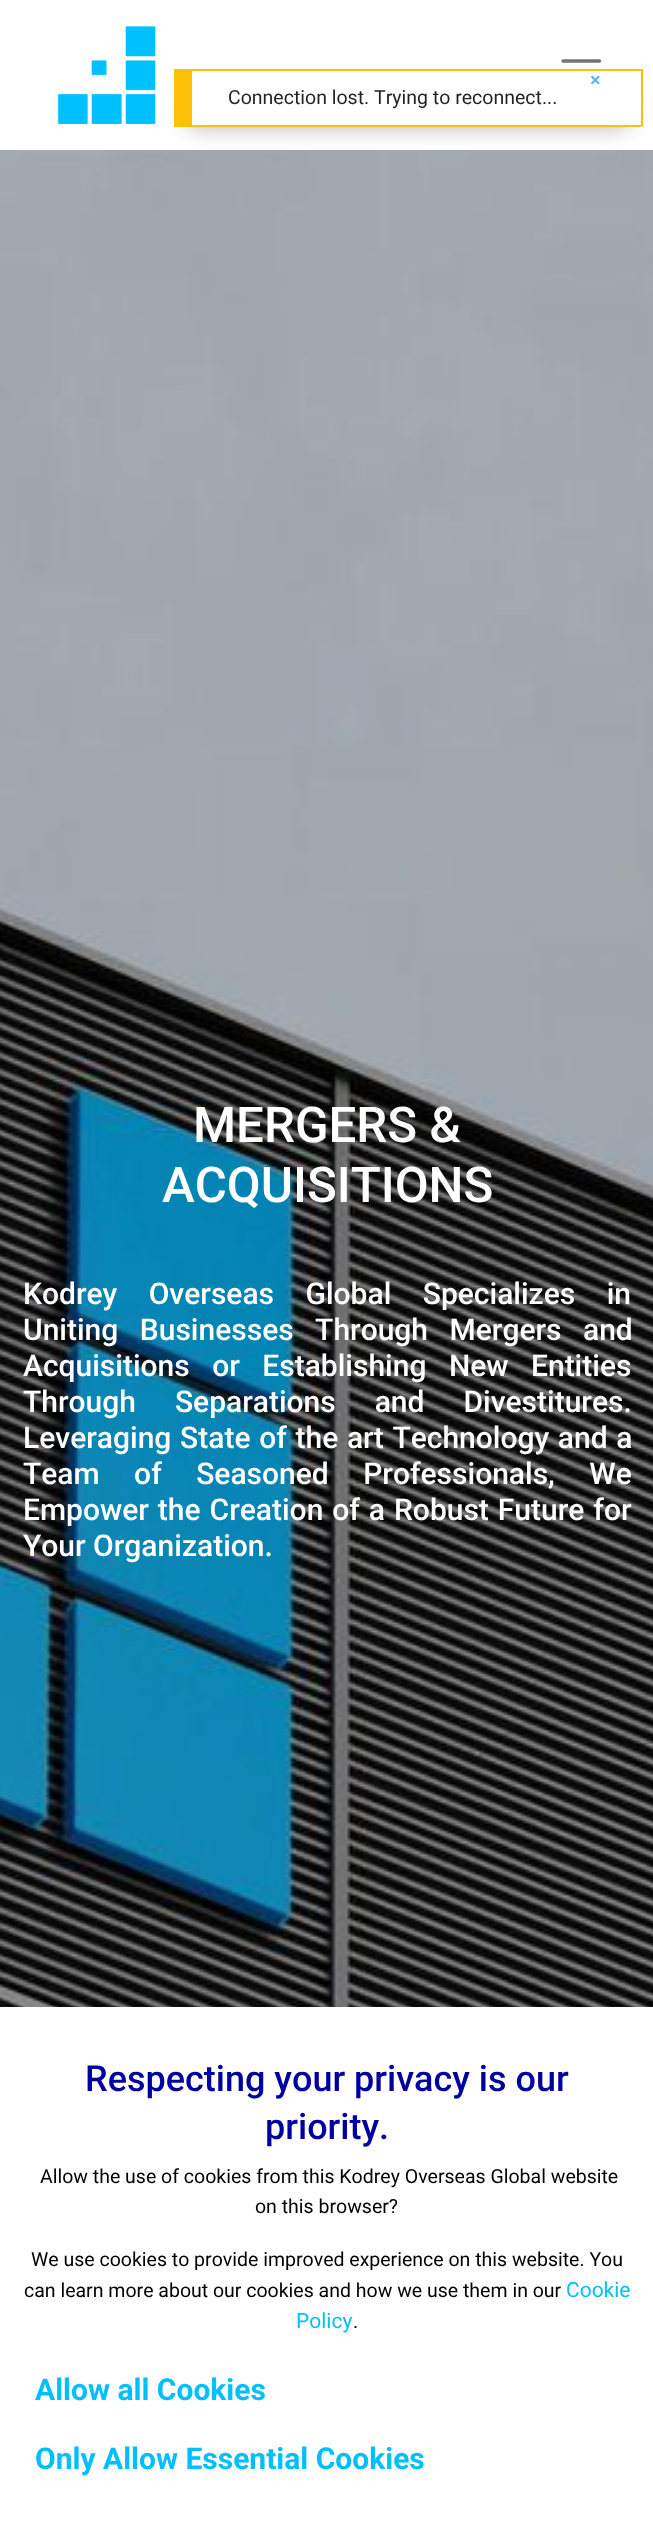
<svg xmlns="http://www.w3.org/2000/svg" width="653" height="2523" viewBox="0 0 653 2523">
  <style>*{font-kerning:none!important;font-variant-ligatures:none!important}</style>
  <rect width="100%" height="100%" fill="rgb(255,255,255)"/>
  <path d="M563 61H599.5M563 74.5H599.5M563 87.5H599.5" fill="none" stroke="rgb(115,115,115)" stroke-width="3.3" stroke-linecap="round"/>
  <image x="0" y="150" width="653" height="1857" href="pic2.png"/>
  <rect x="189" y="102" width="438" height="27" fill="rgba(0,0,0,0.25)" filter="blur(10.5px)"/>
  <rect x="192" y="72" width="449" height="53" fill="rgb(255,255,255)"/>
  <rect x="192" y="69" width="450" height="2" fill="rgb(255,193,7)"/>
  <rect x="641" y="69" width="2" height="57" fill="rgb(255,193,7)"/>
  <rect x="174" y="125" width="468" height="2" fill="rgb(255,193,7)"/>
  <rect x="174" y="69" width="18" height="56" fill="rgb(255,193,7)"/>
  <text x="590" y="86" font-family="Liberation Sans" font-size="18" font-weight="bold" fill="rgb(77,183,254)">×</text>
  <text x="228" y="104" font-family="Roboto" font-size="19.5" fill="rgb(33,37,41)">Connection lost. Trying to reconnect...</text>
  <image x="57" y="26" width="99" height="99" href="pic1.png"/>
  <g font-family="Roboto" font-size="49.25" font-weight="500" fill="rgb(255,255,255)">
    <text x="193" y="1142">MERGERS &amp;</text>
    <text x="162" y="1202">ACQUISITIONS</text>
  </g>
  <g font-family="Roboto" font-size="30" font-weight="500" fill="rgb(255,255,255)">
    <text>
      <tspan x="23" y="1304" word-spacing="24">Kodrey Overseas Global Specializes in</tspan>
      <tspan x="23" y="1340" word-spacing="14">Uniting Businesses Through Mergers and</tspan>
      <tspan x="23" y="1376" word-spacing="15">Acquisitions or Establishing New Entities</tspan>
      <tspan x="23" y="1412" word-spacing="31.5">Through Separations and Divestitures.</tspan>
      <tspan x="23" y="1448" word-spacing="1.25">Leveraging State of the art Technology and a</tspan>
      <tspan x="23" y="1484" word-spacing="27">Team of Seasoned Professionals, We</tspan>
      <tspan x="23" y="1520" word-spacing="1.5">Empower the Creation of a Robust Future for</tspan>
      <tspan x="23" y="1556">Your Organization.</tspan>
    </text>
  </g>
  <g font-family="Roboto" font-size="36" font-weight="500" fill="rgb(0,0,160)">
    <text x="85" y="2091">Respecting your privacy is our</text>
    <text x="265" y="2139">priority.</text>
  </g>
  <g font-family="Roboto" font-size="19.5" fill="rgb(0,0,0)">
    <text x="40" y="2183">Allow the use of cookies from this Kodrey Overseas Global website</text>
    <text x="255" y="2213">on this browser?</text>
    <text x="31" y="2266">We use cookies to provide improved experience on this website. You</text>
    <text x="24" y="2297">can learn more about our cookies and how we use them in our </text>
  </g>
  <g font-family="Roboto" font-size="21" fill="rgb(0,191,255)">
    <text x="566" y="2297">Cookie</text>
    <text x="296" y="2328">Policy</text>
  </g>
  <text x="353" y="2328" font-family="Roboto" font-size="19.5" fill="rgb(0,0,0)">.</text>
  <g font-family="Roboto" font-size="30" font-weight="bold" fill="rgb(0,191,255)">
    <text x="35" y="2400">Allow all Cookies</text>
    <text x="35" y="2469">Only Allow Essential Cookies</text>
  </g>
</svg>
